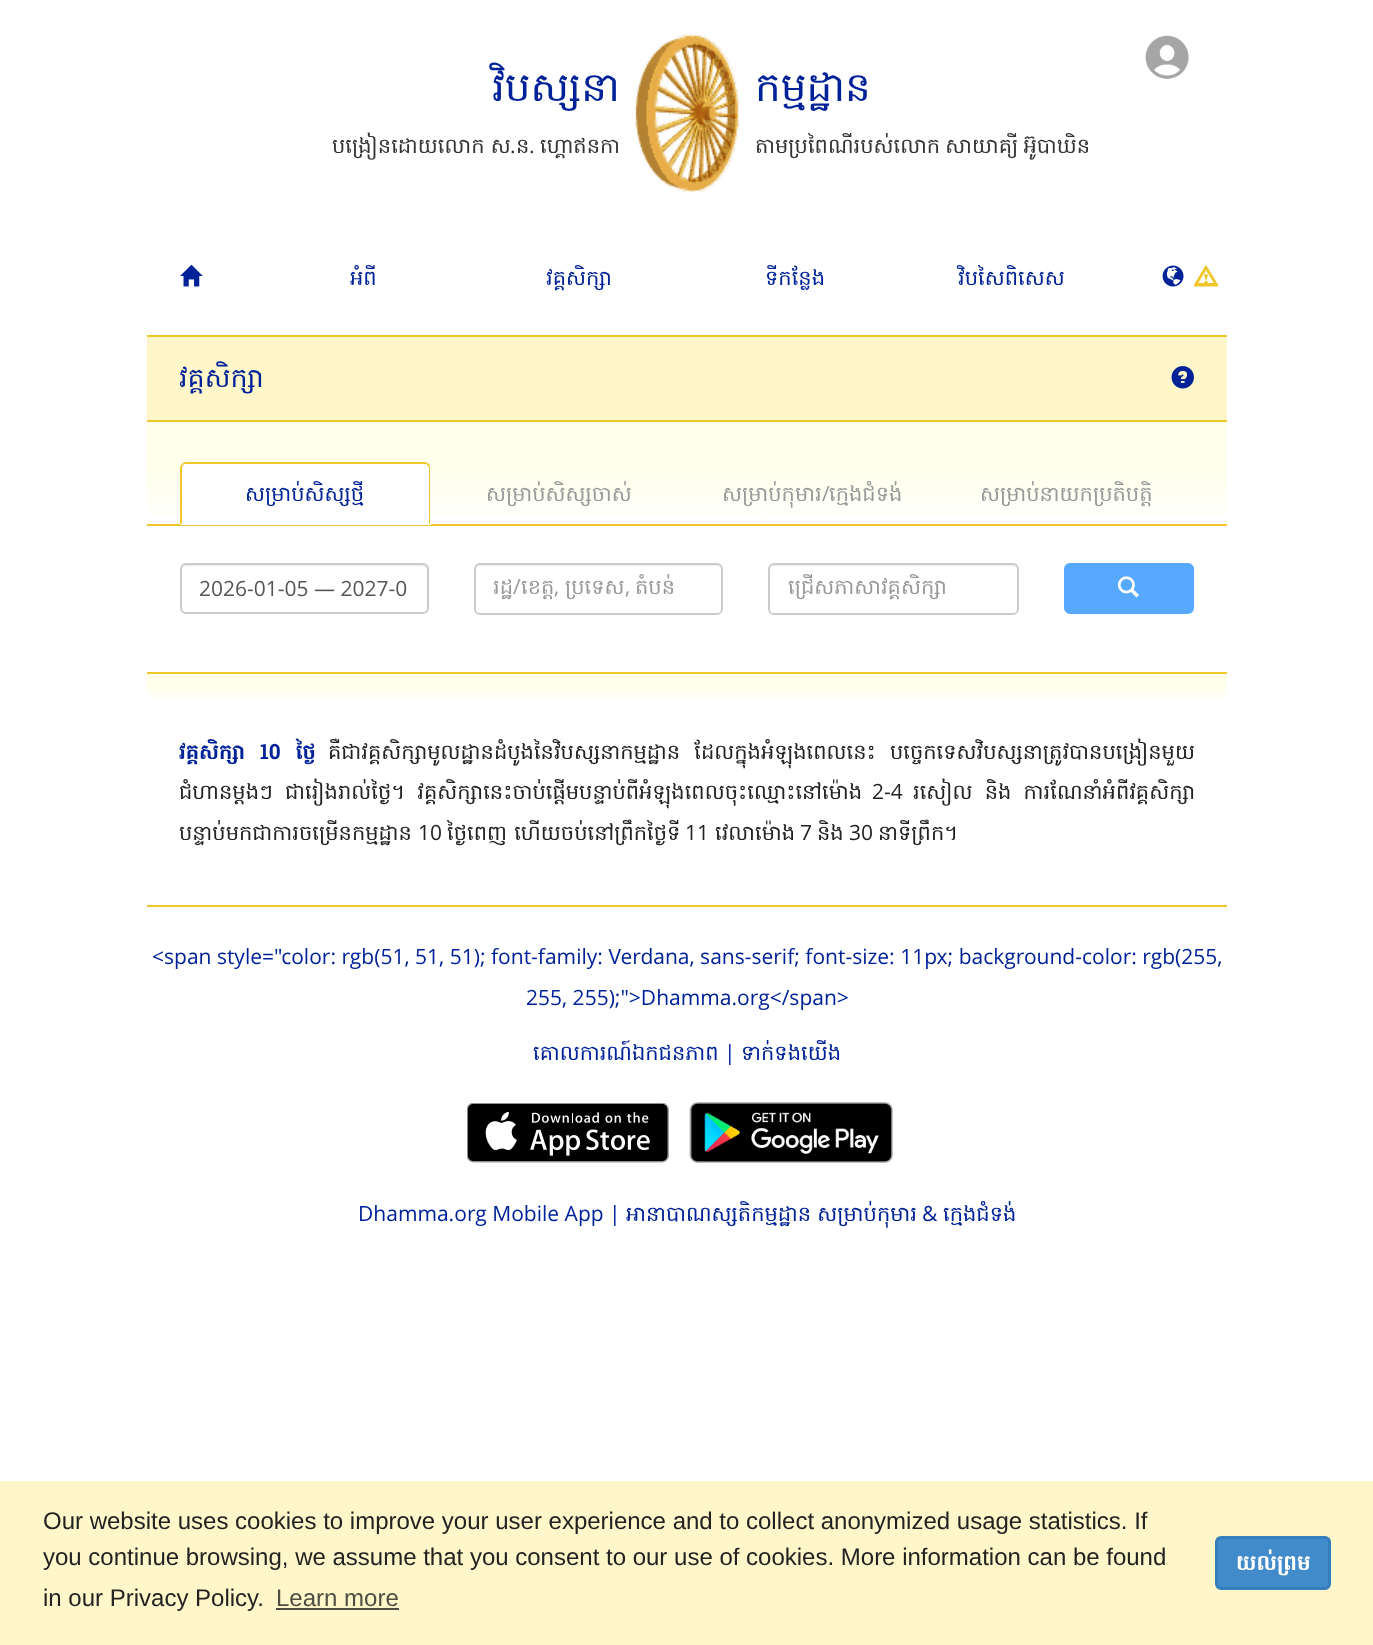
<svg xmlns="http://www.w3.org/2000/svg" width="1373" height="1645" viewBox="0 0 1373 1645">
  <defs>
    <linearGradient id="g1" gradientUnits="userSpaceOnUse" x1="687" y1="421" x2="687" y2="524"><stop offset="0.46" stop-color="rgb(255,255,234)"/><stop offset="1" stop-color="rgb(255,255,255)"/></linearGradient>
    <clipPath id="clip1"><rect x="494" y="572" width="210" height="33"/></clipPath>
    <clipPath id="clip2"><rect x="788" y="572" width="210" height="33"/></clipPath>
    <linearGradient id="g2" gradientUnits="userSpaceOnUse" x1="687" y1="673" x2="687" y2="701"><stop offset="0.46" stop-color="rgb(255,255,234)"/><stop offset="1" stop-color="rgb(255,255,255)"/></linearGradient>
  </defs>
  <rect width="100%" height="100%" fill="rgb(255,255,255)"/>
  <image x="1145" y="35" width="44" height="44" href="pic1.png"/>
  <text x="492" y="101" font-family="Hanuman" font-size="40.5" fill="rgb(0,34,153)">វិបស្សនា</text>
  <text x="332" y="153" word-spacing="-1" font-family="Hanuman" font-size="21" fill="rgb(51,51,51)">បង្រៀនដោយលោក ស</text>
  <text x="510" y="153" font-family="Open Sans" font-size="21" fill="rgb(51,51,51)">.</text>
  <text x="516" y="153" font-family="Hanuman" font-size="21" fill="rgb(51,51,51)">ន</text>
  <text x="529" y="153" font-family="Open Sans" font-size="21" fill="rgb(51,51,51)">.</text>
  <text x="540" y="153" font-family="Hanuman" font-size="21" fill="rgb(51,51,51)">ហ្គោឥនកា</text>
  <image x="634" y="34" width="106" height="158" href="pic2.png"/>
  <text x="755" y="101" font-family="Hanuman" font-size="40.5" fill="rgb(0,34,153)">កម្មដ្ឋាន</text>
  <text x="755" y="153" word-spacing="-2" font-family="Hanuman" font-size="21" fill="rgb(51,51,51)">តាមប្រពៃណីរបស់លោក សាយាគ្យី អ៊ូបាឃិន</text>
  <image x="180" y="264" width="23" height="23" href="pic3.png"/>
  <g font-family="Hanuman" font-size="21" fill="rgb(0,34,153)">
    <text x="350" y="285">អំពី</text>
    <text x="546" y="285">វគ្គសិក្សា</text>
    <text x="765" y="285">ទីកន្លែង</text>
    <text x="958" y="285">វិបសៃពិសេស</text>
  </g>
  <image x="1162" y="265" width="22" height="22" href="pic4.png"/>
  <image x="1193" y="265" width="26" height="22" href="pic5.png"/>
  <rect x="147" y="337" width="1080" height="83" fill="rgb(255,247,201)"/>
  <rect x="147" y="335" width="1080" height="2" fill="rgb(239,199,42)"/>
  <rect x="147" y="420" width="1080" height="2" fill="rgb(239,199,42)"/>
  <text x="179" y="387" font-family="Hanuman" font-size="27" fill="rgb(0,34,153)">វគ្គសិក្សា</text>
  <image x="1171" y="366" width="23" height="23" href="pic6.png"/>
  <rect x="147" y="422" width="1080" height="95" fill="url(#g1)"/>
  <rect x="147" y="524" width="1080" height="2" fill="rgb(239,199,42)"/>
  <path d="M186 462H425C428.5 462 431 464.5 431 468V525H180V468C180 464.5 182.5 462 186 462Z" fill="rgb(255,255,255)"/>
  <path d="M186 462C184 462 183 463 182 464L183 465C184 464 185 464 186 464H424C425 464 427 464 427 465L429 464C428 463 426 462 424 462Z" fill="rgb(239,199,42)"/>
  <path d="M429 464C430 465 430 467 430 468V524H429V467L427 465Z" fill="rgb(239,199,42)"/>
  <path d="M180 525L182 523V468L183 465L182 464C181 465 180 466 180 468Z" fill="rgb(239,199,42)"/>
  <text x="245" y="501" font-family="Hanuman" font-size="21" fill="rgb(0,34,153)">សម្រាប់សិស្សថ្មី</text>
  <g font-family="Hanuman" font-size="21" fill="rgb(153,153,153)">
    <text x="486" y="501">សម្រាប់សិស្សចាស់</text>
    <text x="722" y="501">សម្រាប់កុមារ</text>
  </g>
  <text x="822" y="501" font-family="Open Sans" font-size="21" fill="rgb(153,153,153)">/</text>
  <g font-family="Hanuman" font-size="21" fill="rgb(153,153,153)">
    <text x="829" y="501">ក្មេងជំទង់</text>
    <text x="980" y="501">សម្រាប់នាយកប្រតិបត្តិ</text>
  </g>
  <path d="M186 566H423C425 566 428 568 428 570V569C428 566 426 564 423 564H187C184 564 182 566 182 569V570C182 568 184 566 186 566Z" fill="rgb(236,236,236)"/>
  <rect x="181" y="564" width="247" height="49" rx="5" fill="none" stroke="rgb(204,204,204)" stroke-width="2"/>
  <text x="199" y="596" font-family="Open Sans" font-size="21" fill="rgb(85,85,85)">2026-01-05 — 2027-0</text>
  <path d="M480 566H717C719 566 722 568 722 570V569C722 566 720 564 717 564H481C478 564 476 566 476 569V570C476 568 478 566 480 566Z" fill="rgb(236,236,236)"/>
  <rect x="475" y="564" width="247" height="50" rx="5" fill="none" stroke="rgb(204,204,204)" stroke-width="2"/>
  <g clip-path="url(#clip1)">
    <text x="493" y="594" font-family="Hanuman" font-size="21" fill="rgb(153,153,153)">រដ្ឋ</text>
  </g>
  <text x="513" y="594" font-family="Open Sans" font-size="21" fill="rgb(153,153,153)">/</text>
  <text x="521" y="594" font-family="Hanuman" font-size="21" fill="rgb(153,153,153)">ខេត្ត</text>
  <text x="554" y="594" font-family="Open Sans" font-size="21" fill="rgb(153,153,153)">,</text>
  <text x="565" y="594" font-family="Hanuman" font-size="21" fill="rgb(153,153,153)">ប្រទេស</text>
  <text x="625" y="594" font-family="Open Sans" font-size="21" fill="rgb(153,153,153)">,</text>
  <text x="635" y="594" font-family="Hanuman" font-size="21" fill="rgb(153,153,153)">តំបន់</text>
  <path d="M774 566H1012C1015 566 1017 568 1017 570V569C1017 566 1015 564 1012 564H775C772 564 770 566 770 569V570C770 568 772 566 774 566Z" fill="rgb(236,236,236)"/>
  <rect x="769" y="564" width="249" height="50" rx="5" fill="none" stroke="rgb(204,204,204)" stroke-width="2"/>
  <g clip-path="url(#clip2)">
    <text x="788" y="594" font-family="Hanuman" font-size="21" fill="rgb(153,153,153)">ជ្រើសភាសាវគ្គសិក្សា</text>
  </g>
  <rect x="1065" y="564" width="128" height="49" rx="5" fill="rgb(87,168,255)" stroke="rgb(87,168,255)" stroke-width="2"/>
  <image x="1117" y="576" width="22" height="22" href="pic7.png"/>
  <rect x="147" y="674" width="1080" height="25" fill="url(#g2)"/>
  <rect x="147" y="672" width="1080" height="2" fill="rgb(239,199,42)"/>
  <text x="179" y="759" word-spacing="8" font-family="Hanuman" font-size="21" font-weight="bold" fill="rgb(0,34,153)">វគ្គសិក្សា 10 ថ្ងៃ</text>
  <g font-family="Hanuman" font-size="21" fill="rgb(34,34,34)">
    <text x="328" y="759" word-spacing="7">គឺជាវគ្គសិក្សាមូលដ្ឋានដំបូងនៃវិបស្សនាកម្មដ្ឋាន ដែលក្នុងអំឡុងពេលនេះ បច្ចេកទេសវិបស្សនាត្រូវបានបង្រៀនមួយ</text>
    <text x="179" y="799" word-spacing="5">ជំហានម្តងៗ ជារៀងរាល់ថ្ងៃ។ វគ្គសិក្សានេះចាប់ផ្តើមបន្ទាប់ពីអំឡុងពេលចុះឈ្មោះនៅម៉ោង</text>
  </g>
  <text x="872" y="799" font-family="Open Sans" font-size="21" fill="rgb(34,34,34)">2-4</text>
  <g font-family="Hanuman" font-size="21" fill="rgb(34,34,34)">
    <text x="913" y="799" word-spacing="5">រសៀល និង ការណែនាំអំពីវគ្គសិក្សា</text>
    <text x="179" y="840">បន្ទាប់មកជាការចម្រើនកម្មដ្ឋាន</text>
  </g>
  <text x="418" y="840" font-family="Open Sans" font-size="21" fill="rgb(34,34,34)">10</text>
  <text x="447" y="840" font-family="Hanuman" font-size="21" fill="rgb(34,34,34)">ថ្ងៃពេញ ហើយចប់នៅព្រឹកថ្ងៃទី</text>
  <text x="685" y="840" font-family="Open Sans" font-size="21" fill="rgb(34,34,34)">11</text>
  <text x="715" y="840" font-family="Hanuman" font-size="21" fill="rgb(34,34,34)">វេលាម៉ោង</text>
  <text x="800" y="840" font-family="Open Sans" font-size="21" fill="rgb(34,34,34)">7</text>
  <text x="817" y="840" font-family="Hanuman" font-size="21" fill="rgb(34,34,34)">និង</text>
  <text x="849" y="840" font-family="Open Sans" font-size="21" fill="rgb(34,34,34)">30</text>
  <text x="878" y="840" font-family="Hanuman" font-size="21" fill="rgb(34,34,34)">នាទីព្រឹក។</text>
  <rect x="147" y="905" width="1080" height="2" fill="rgb(239,199,42)"/>
  <g font-family="Open Sans" font-size="21" fill="rgb(0,34,153)">
    <text x="152" y="964">&lt;span style="color: rgb(51, 51, 51); font-family: Verdana, sans-serif; font-size: 11px; background-color: rgb(255,</text>
    <text x="526" y="1005">255, 255);"&gt;Dhamma.org&lt;/span&gt;</text>
  </g>
  <text x="533" y="1060" font-family="Hanuman" font-size="21" fill="rgb(0,34,153)">គោលការណ៍ឯកជនភាព</text>
  <text x="724" y="1060" font-family="Open Sans" font-size="21" fill="rgb(0,34,153)">|</text>
  <text x="741" y="1060" font-family="Hanuman" font-size="21" fill="rgb(0,34,153)">ទាក់ទងយើង</text>
  <image x="467" y="1103" width="202" height="60" href="pic8.png"/>
  <image x="689" y="1102" width="204" height="61" href="pic9.png"/>
  <text x="358" y="1221" font-family="Open Sans" font-size="21" fill="rgb(0,34,153)">Dhamma.org Mobile App |</text>
  <text x="626" y="1221" word-spacing="-1" font-family="Hanuman" font-size="21" fill="rgb(0,34,153)">អានាបាណស្សតិកម្មដ្ឋាន សម្រាប់កុមារ</text>
  <text x="922" y="1221" font-family="Open Sans" font-size="21" fill="rgb(0,34,153)">&amp;</text>
  <text x="943" y="1221" font-family="Hanuman" font-size="21" fill="rgb(0,34,153)">ក្មេងជំទង់</text>
  <rect x="0" y="1481" width="1373" height="164" fill="rgb(255,247,201)"/>
  <g font-family="Liberation Sans" font-size="24" fill="rgb(34,34,34)">
    <text>
      <tspan x="43" y="1529">Our website uses cookies to improve your user experience and to collect anonymized usage statistics. If</tspan>
      <tspan x="43" y="1565">you continue browsing, we assume that you consent to our use of cookies. More information can be found</tspan>
      <tspan x="43" y="1606">in our Privacy Policy.</tspan>
    </text>
  </g>
  <text x="276" y="1606" font-family="Liberation Sans" font-size="24" fill="rgb(78,77,67)">Learn more</text>
  <rect x="276" y="1608" width="123" height="2" fill="rgb(78,77,67)"/>
  <rect x="1216.5" y="1537.5" width="113" height="51" rx="4.5" fill="rgb(66,139,202)" stroke="rgb(53,126,189)" stroke-width="3"/>
  <text x="1236" y="1570" font-family="Hanuman" font-size="21.5" font-weight="bold" fill="rgb(255,255,255)">យល់ព្រម</text>
</svg>
